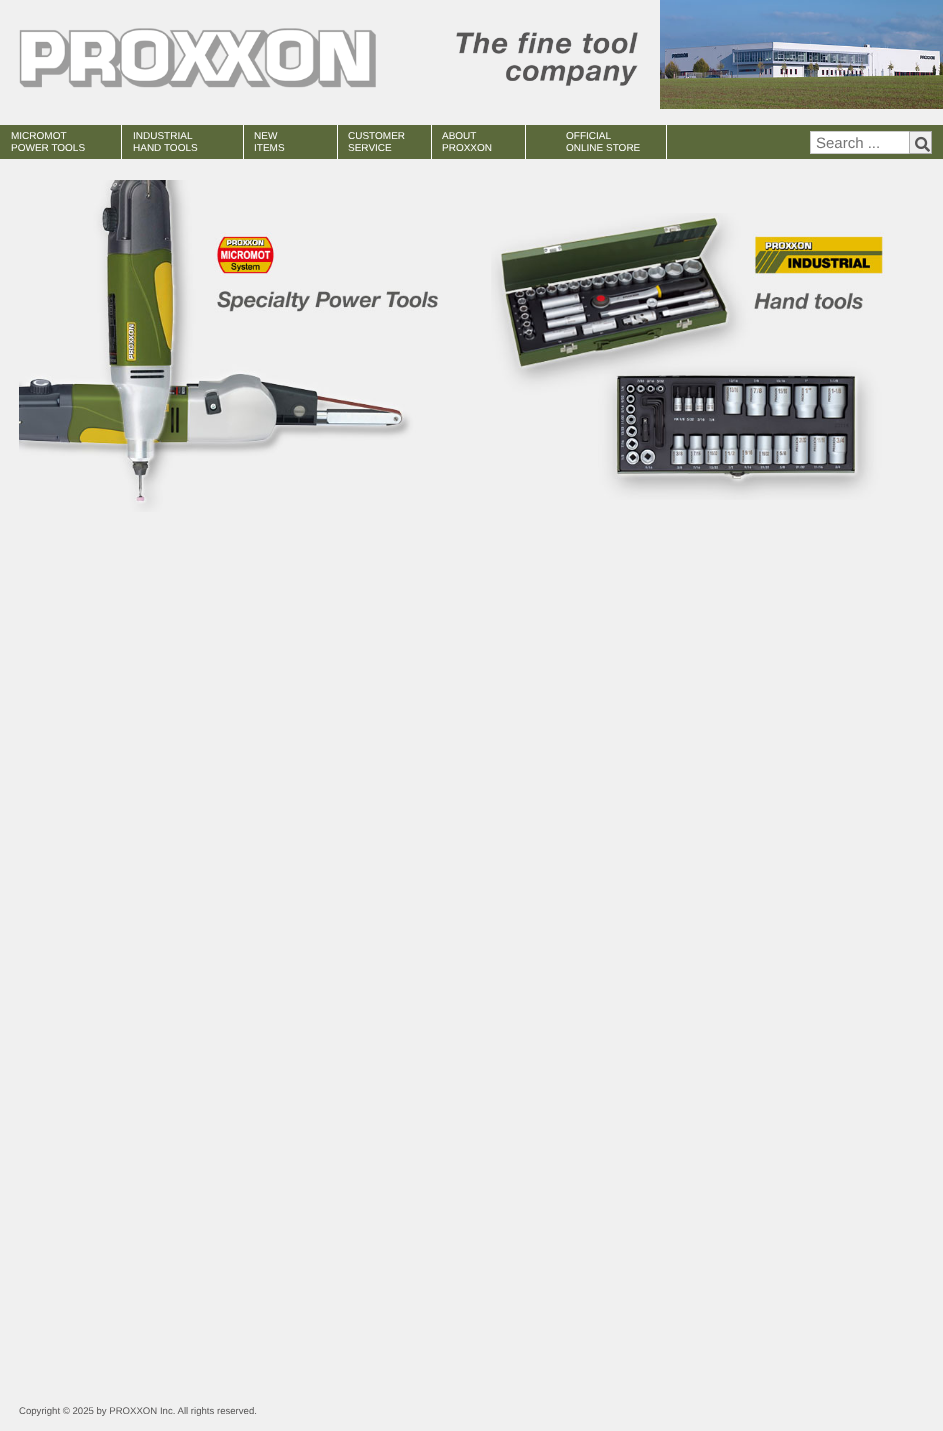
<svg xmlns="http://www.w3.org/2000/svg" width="943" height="1431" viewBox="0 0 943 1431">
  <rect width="100%" height="100%" fill="rgb(240,240,240)"/>
  <image x="19" y="28" width="357" height="60" href="pic1.png"/>
  <image x="456" y="32" width="182" height="54" href="pic2.png"/>
  <image x="660" y="0" width="283" height="109" href="pic3.png"/>
  <rect x="0" y="125" width="943" height="34" fill="rgb(91,105,59)"/>
  <rect x="121" y="125" width="1" height="34" fill="rgb(255,255,255)"/>
  <g font-family="Liberation Sans" font-size="10" fill="rgb(255,255,255)">
    <text>
      <tspan x="11" y="139">MICROMOT</tspan>
      <tspan x="11" y="151">POWER TOOLS</tspan>
    </text>
  </g>
  <rect x="243" y="125" width="1" height="34" fill="rgb(255,255,255)"/>
  <g font-family="Liberation Sans" font-size="10" fill="rgb(255,255,255)">
    <text>
      <tspan x="133" y="139">INDUSTRIAL</tspan>
      <tspan x="133" y="151">HAND TOOLS</tspan>
    </text>
  </g>
  <rect x="337" y="125" width="1" height="34" fill="rgb(255,255,255)"/>
  <g font-family="Liberation Sans" font-size="10" fill="rgb(255,255,255)">
    <text>
      <tspan x="254" y="139">NEW</tspan>
      <tspan x="254" y="151">ITEMS</tspan>
    </text>
  </g>
  <rect x="431" y="125" width="1" height="34" fill="rgb(255,255,255)"/>
  <g font-family="Liberation Sans" font-size="10" fill="rgb(255,255,255)">
    <text>
      <tspan x="348" y="139">CUSTOMER</tspan>
      <tspan x="348" y="151">SERVICE</tspan>
    </text>
  </g>
  <rect x="525" y="125" width="1" height="34" fill="rgb(255,255,255)"/>
  <g font-family="Liberation Sans" font-size="10" fill="rgb(255,255,255)">
    <text>
      <tspan x="442" y="139">ABOUT</tspan>
      <tspan x="442" y="151">PROXXON</tspan>
    </text>
  </g>
  <rect x="666" y="125" width="1" height="34" fill="rgb(255,255,255)"/>
  <g font-family="Liberation Sans" font-size="10" fill="rgb(255,255,255)">
    <text>
      <tspan x="566" y="139">OFFICIAL</tspan>
      <tspan x="566" y="151">ONLINE STORE</tspan>
    </text>
  </g>
  <rect x="811" y="132" width="98" height="21" fill="rgb(255,255,255)"/>
  <rect x="810.5" y="131.5" width="121" height="22" fill="none" stroke="rgb(204,204,204)"/>
  <text x="816" y="148" font-family="Liberation Sans" font-size="15" fill="rgb(117,117,117)">Search ...</text>
  <rect x="909.5" y="131.5" width="22" height="22" fill="rgb(239,239,239)" stroke="rgb(173,173,173)"/>
  <image x="915" y="136" width="15" height="16" href="pic4.png"/>
  <image x="19" y="180" width="420" height="332" href="pic5.png"/>
  <image x="491" y="213" width="394" height="287" href="pic6.png"/>
  <text x="19" y="1414" font-family="Liberation Sans" font-size="9.6" fill="rgb(87,86,86)">Copyright © 2025 by PROXXON Inc. All rights reserved.</text>
</svg>
